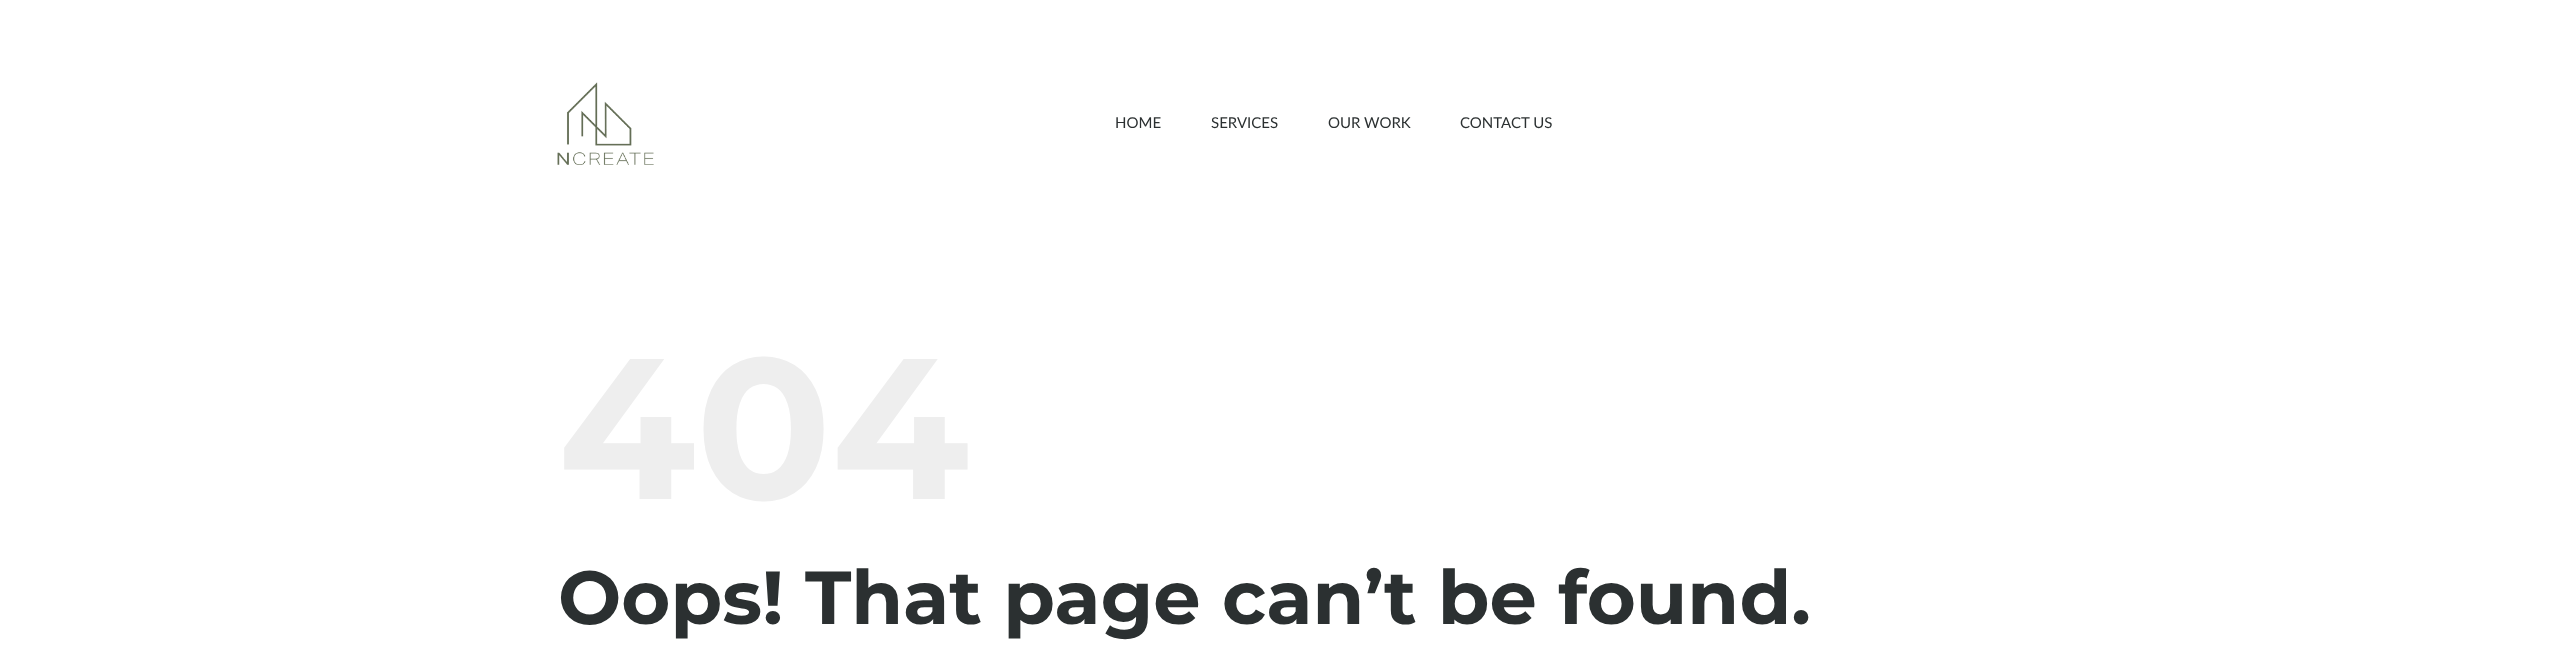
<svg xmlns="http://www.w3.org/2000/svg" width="2552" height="653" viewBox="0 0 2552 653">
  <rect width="100%" height="100%" fill="rgb(255,255,255)"/>
  <image x="557" y="82" width="97" height="83" href="pic1.png"/>
  <g font-family="Lato" font-size="15" fill="rgb(43,48,49)">
    <text x="1115" y="128">HOME</text>
    <text x="1211" y="128">SERVICES</text>
    <text x="1328" y="128">OUR WORK</text>
    <text x="1460" y="128">CONTACT US</text>
  </g>
  <text x="558" y="499" font-family="Montserrat" font-size="200" font-weight="bold" fill="rgb(238,238,238)">404</text>
  <text x="558" y="624" font-family="Montserrat" font-size="75" font-weight="bold" fill="rgb(43,48,49)">Oops! That page can’t be found.</text>
</svg>
